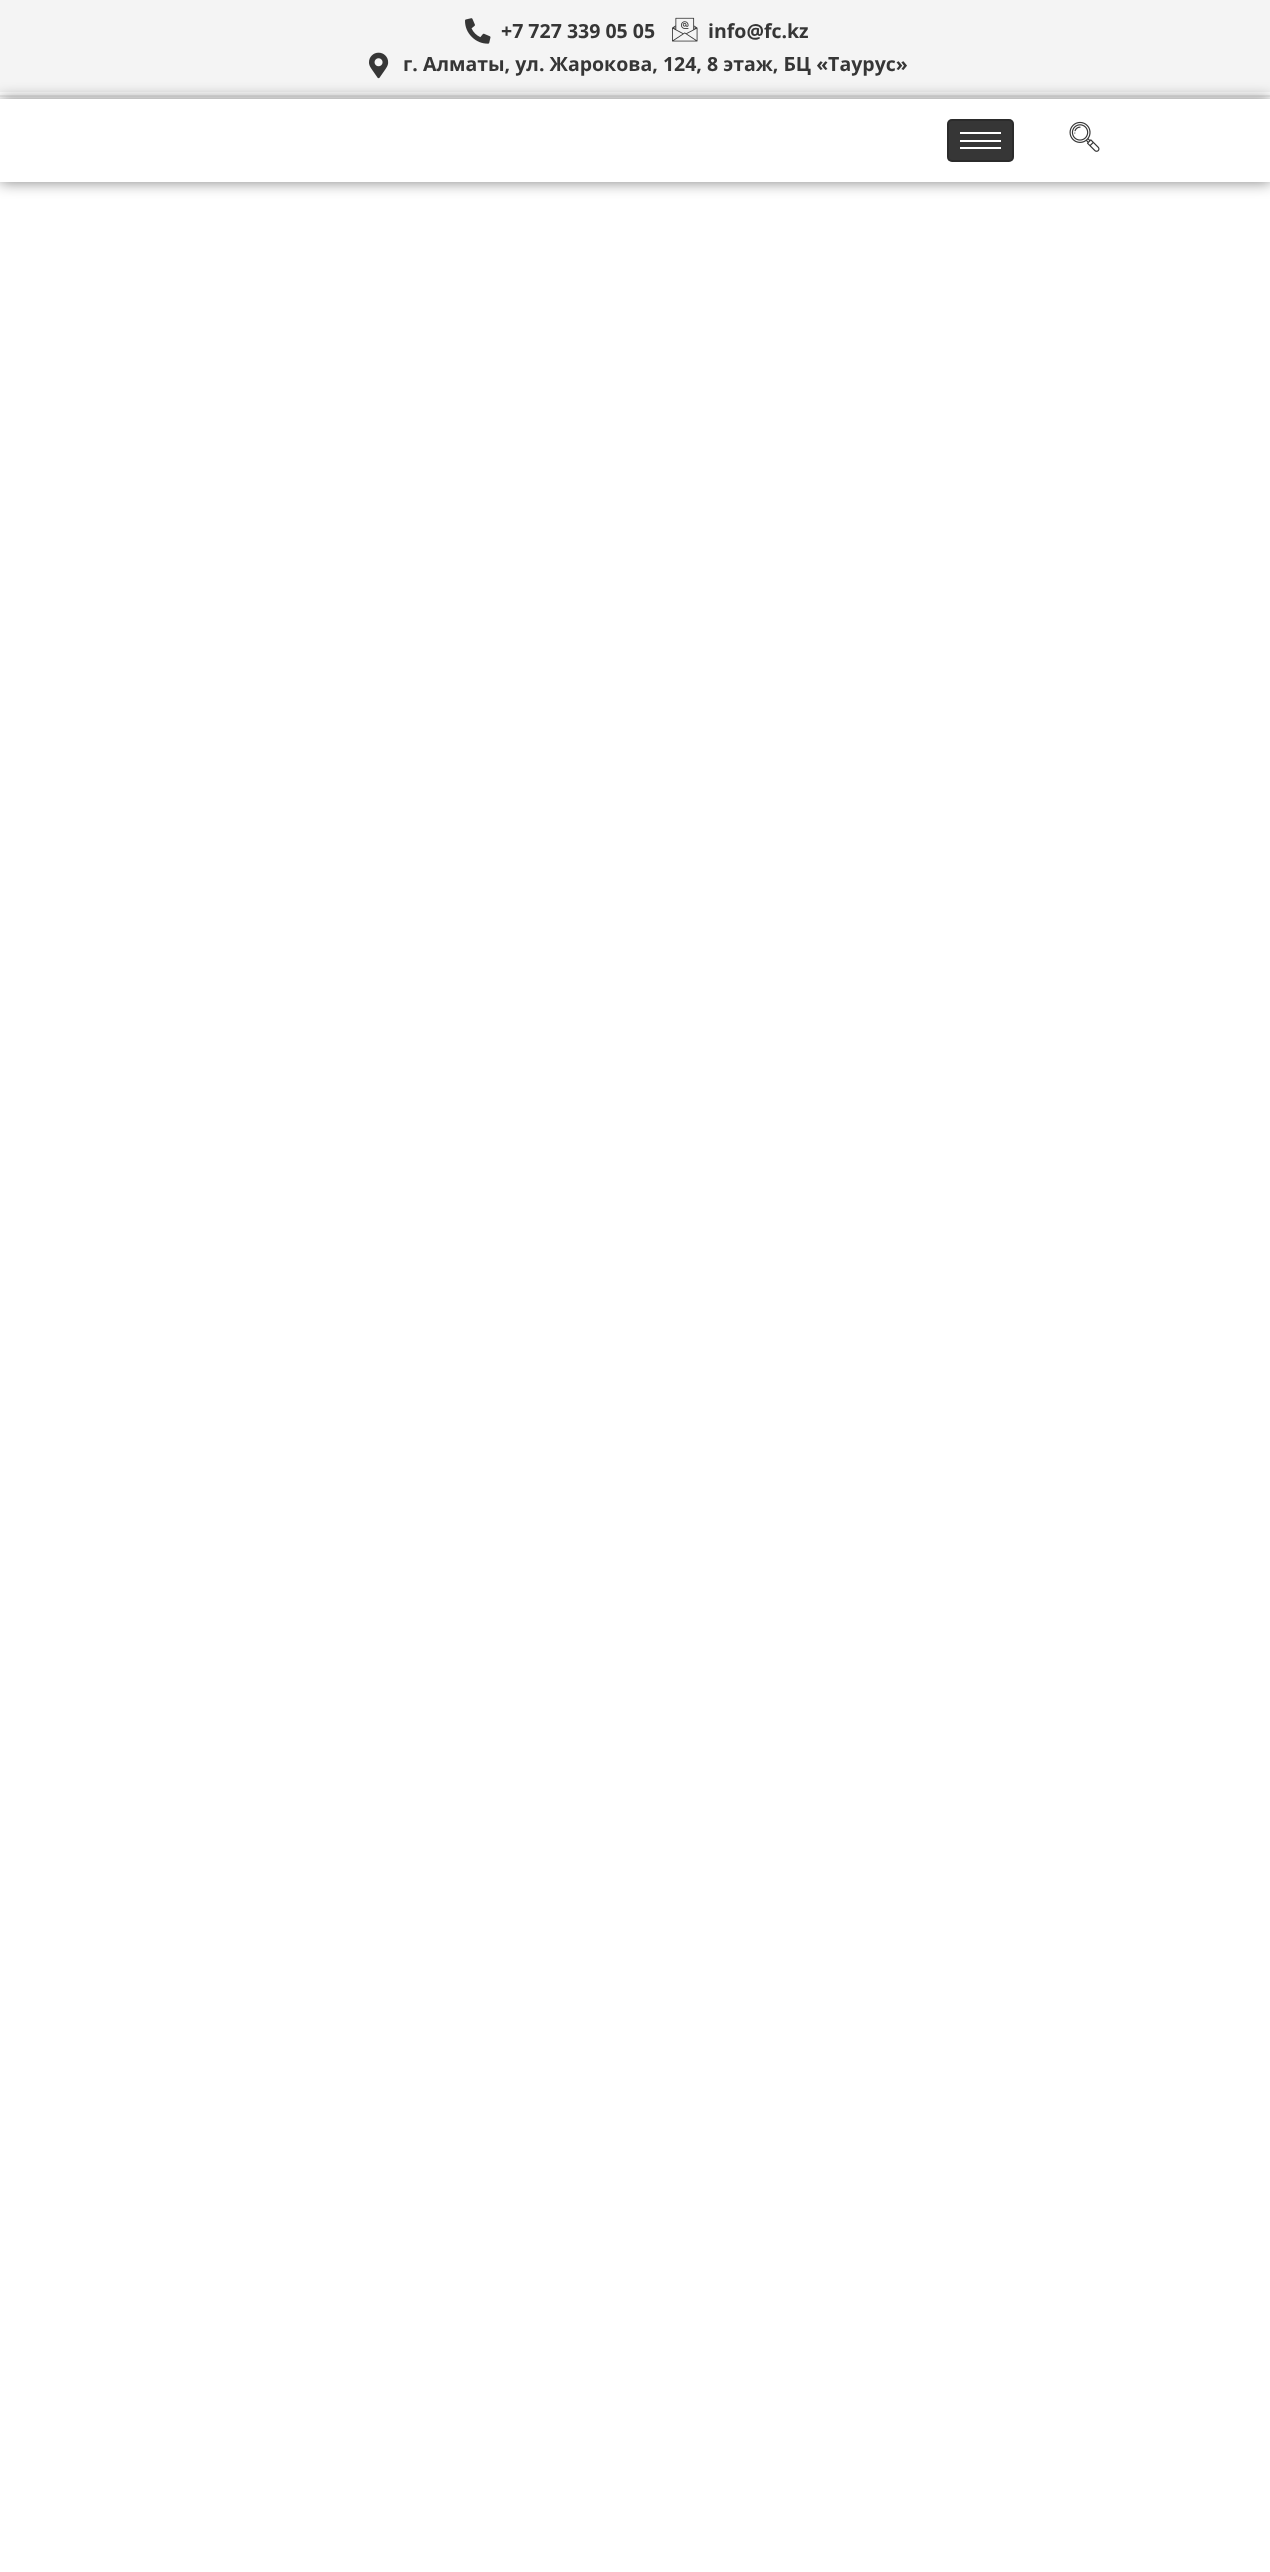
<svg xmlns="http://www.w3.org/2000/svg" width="1270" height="2572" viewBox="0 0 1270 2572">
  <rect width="100%" height="100%" fill="rgb(255,255,255)"/>
  <rect x="0" y="0" width="1270" height="92" fill="rgb(244,244,244)"/>
  <image x="465" y="18" width="26" height="26" href="pic1.png"/>
  <text x="501" y="38" font-family="Open Sans" font-size="19.5" font-weight="bold" fill="rgb(54,54,54)">+7 727 339 05 05</text>
  <image x="672" y="17" width="26" height="25" href="pic2.png"/>
  <text x="708" y="38" font-family="Open Sans" font-size="19.5" font-weight="bold" fill="rgb(54,54,54)">info@fc.kz</text>
  <image x="369" y="52" width="20" height="27" href="pic3.png"/>
  <text x="403" y="71" font-family="Open Sans" font-size="19.5" font-weight="bold" fill="rgb(54,54,54)">г. Алматы, ул. Жарокова, 124, 8 этаж, БЦ «Таурус»</text>
  <rect x="0" y="95" width="1270" height="2" fill="rgb(239,239,239)"/>
  <rect x="0" y="99" width="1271" height="83" fill="rgba(0,0,0,0.5)" filter="blur(7.5px)"/>
  <rect x="0" y="99" width="1270" height="83" fill="rgb(255,255,255)"/>
  <rect x="947" y="119" width="67" height="43" rx="5" fill="rgb(54,54,54)"/>
  <rect x="948" y="120" width="65" height="41" rx="4" fill="none" stroke="rgba(0,0,0,0.2)" stroke-width="2"/>
  <rect x="960" y="132" width="41" height="2" fill="rgb(255,255,255)"/>
  <rect x="960" y="140" width="41" height="2" fill="rgb(255,255,255)"/>
  <rect x="960" y="147" width="41" height="2" fill="rgb(255,255,255)"/>
  <image x="1069" y="121" width="31" height="31" href="pic4.png"/>
</svg>
